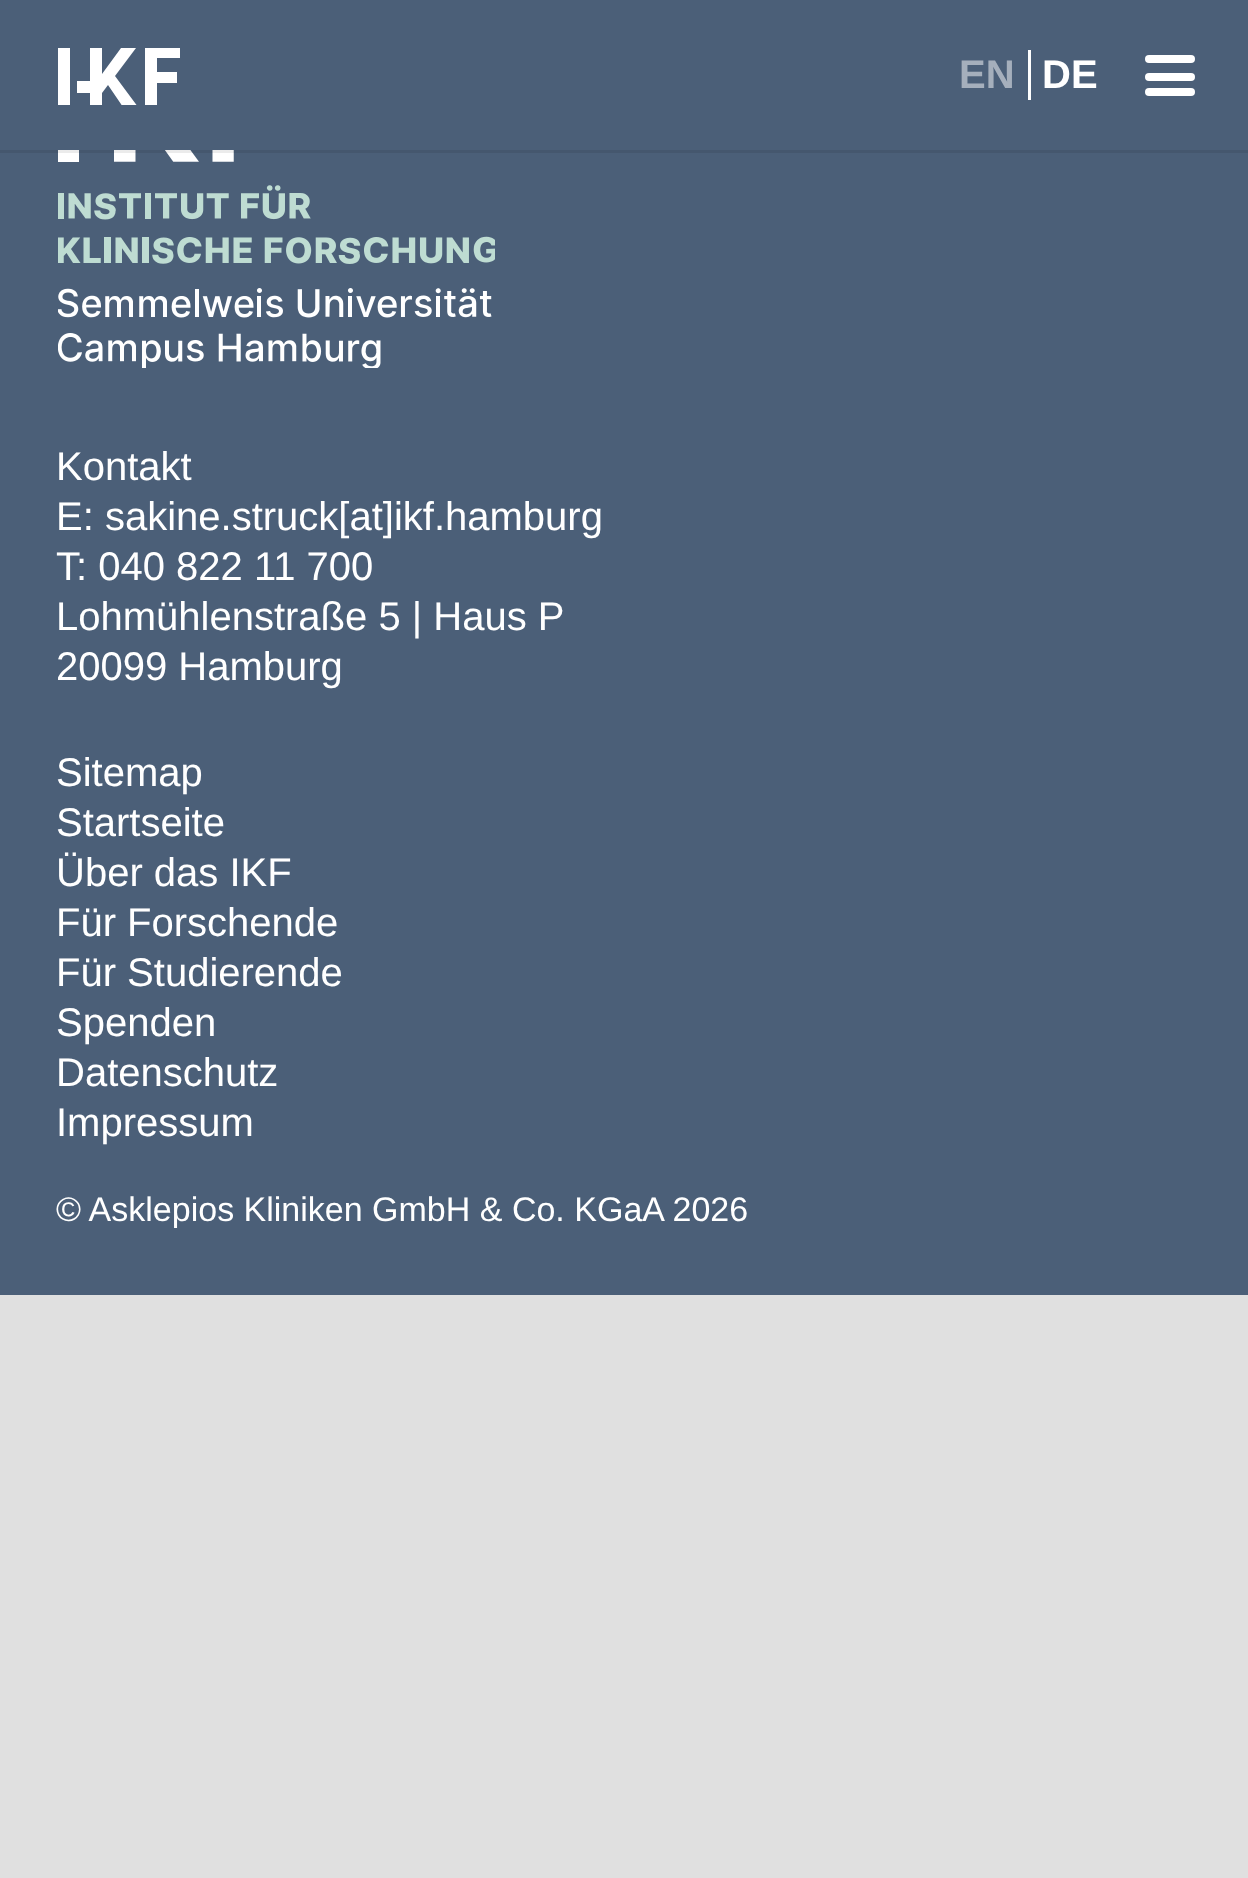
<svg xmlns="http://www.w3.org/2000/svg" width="1248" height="1878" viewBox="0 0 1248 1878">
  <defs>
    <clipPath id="clip1"><rect x="58" y="48" width="122" height="57"/></clipPath>
  </defs>
  <rect width="100%" height="100%" fill="rgb(224,224,224)"/>
  <rect x="0" y="0" width="1248" height="1295" fill="rgb(75,95,120)"/>
  <image x="58" y="150" width="437" height="218" href="pic1.png"/>
  <rect x="0" y="150" width="1248" height="3" fill="rgba(0,0,0,0.08)"/>
  <rect x="58" y="48" width="12" height="57" fill="rgb(255,255,255)"/>
  <g clip-path="url(#clip1)">
    <path d="M136 48H121L102 74V48H90V81H77V93H90V107H102V93L108 85L123 107H138L115 76Z" fill="rgb(255,255,255)"/>
    <path d="M182 58V48H145V107H157V83H177V72H157V58Z" fill="rgb(255,255,255)"/>
  </g>
  <rect x="1145" y="73" width="50" height="8" rx="4" fill="rgb(255,255,255)"/>
  <rect x="1145" y="55" width="50" height="8" rx="4" fill="rgb(255,255,255)"/>
  <rect x="1145" y="88" width="50" height="8" rx="4" fill="rgb(255,255,255)"/>
  <rect x="1028" y="50" width="3" height="50" fill="rgb(255,255,255)"/>
  <text x="959" y="88" font-family="Liberation Sans" font-size="40" font-weight="bold" fill="rgb(165,175,188)">EN</text>
  <text x="1042" y="88" font-family="Liberation Sans" font-size="40" font-weight="bold" fill="rgb(255,255,255)">DE</text>
  <g font-family="Liberation Sans" font-size="40" fill="rgb(255,255,255)">
    <text>
      <tspan x="56" y="480">Kontakt</tspan>
      <tspan x="56" y="530">E: sakine.struck[at]ikf.hamburg</tspan>
      <tspan x="56" y="580">T: 040 822 11 700</tspan>
      <tspan x="56" y="630">Lohmühlenstraße 5 | Haus P</tspan>
      <tspan x="56" y="680">20099 Hamburg</tspan>
    </text>
    <text>
      <tspan x="56" y="786">Sitemap</tspan>
      <tspan x="56" y="836">Startseite</tspan>
      <tspan x="56" y="886">Über das IKF</tspan>
      <tspan x="56" y="936">Für Forschende</tspan>
      <tspan x="56" y="986">Für Studierende</tspan>
      <tspan x="56" y="1036">Spenden</tspan>
      <tspan x="56" y="1086">Datenschutz</tspan>
      <tspan x="56" y="1136">Impressum</tspan>
    </text>
  </g>
  <text x="56" y="1221" font-family="Liberation Sans" font-size="34" fill="rgb(255,255,255)">© Asklepios Kliniken GmbH &amp; Co. KGaA 2026</text>
</svg>
